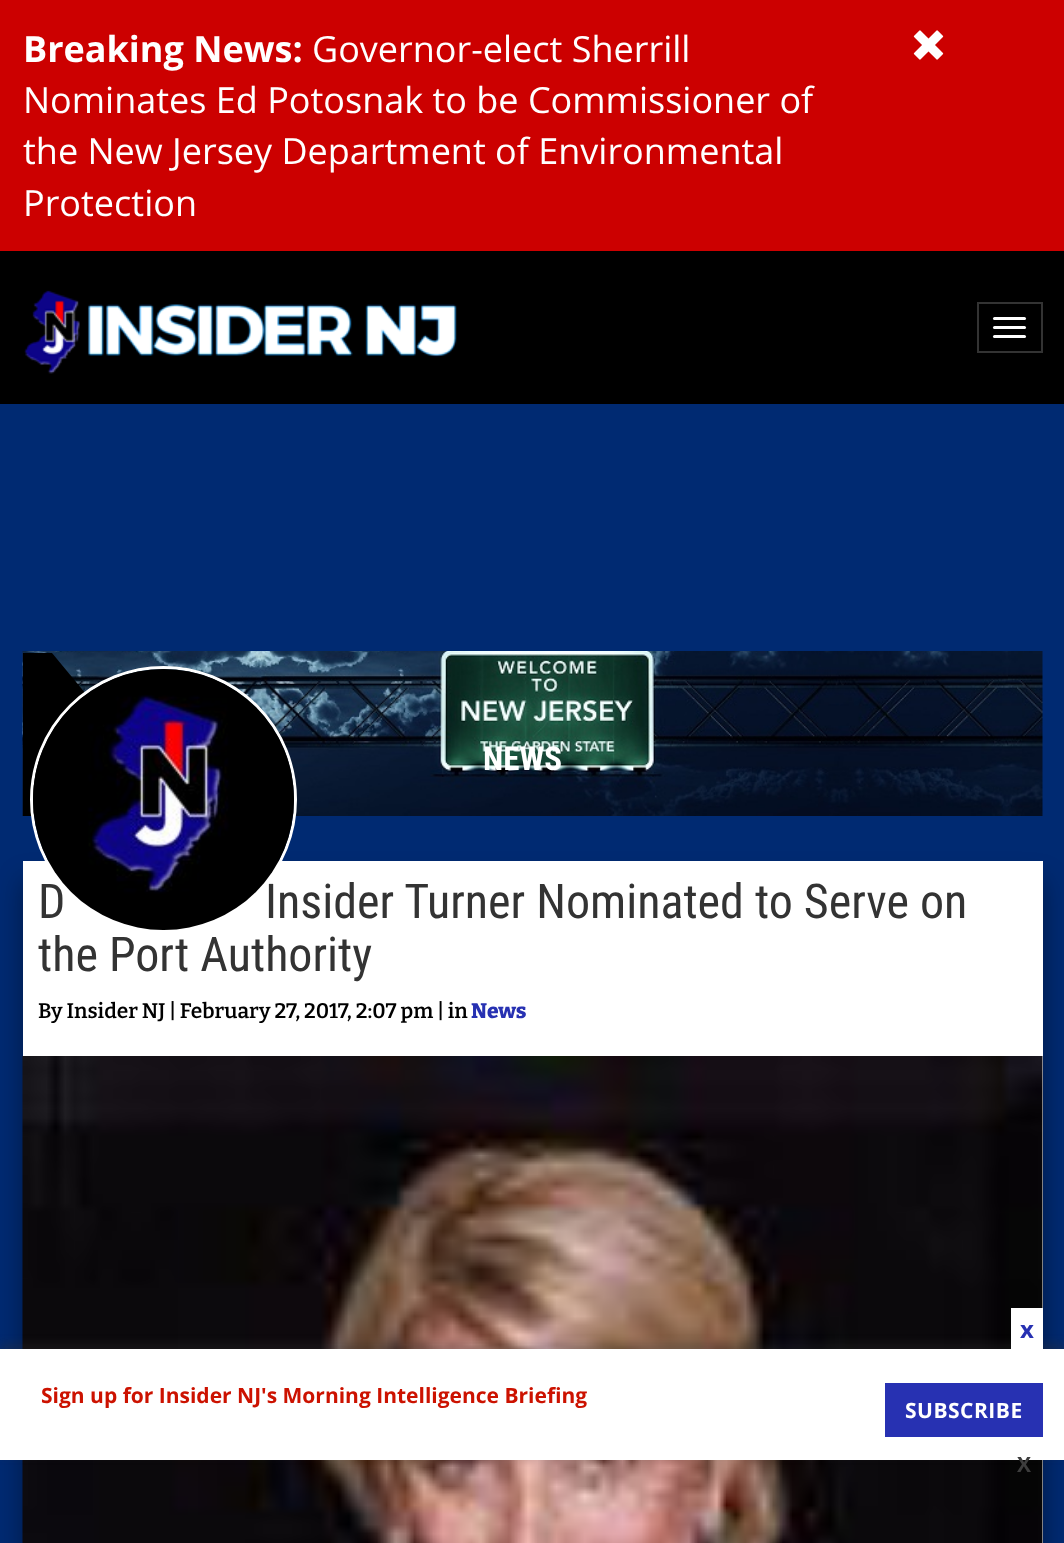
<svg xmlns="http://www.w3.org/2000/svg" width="1064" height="1543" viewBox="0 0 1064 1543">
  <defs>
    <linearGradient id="g1" gradientUnits="userSpaceOnUse" x1="-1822" y1="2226" x2="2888" y2="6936"><stop offset="0.31" stop-color="rgb(0,42,114)"/><stop offset="1" stop-color="rgb(0,110,206)"/></linearGradient>
  </defs>
  <rect width="100%" height="100%" fill="rgb(204,0,0)"/>
  <text x="23" y="62" font-family="Open Sans" font-size="36" font-weight="bold" fill="rgb(255,255,255)">Breaking News:</text>
  <g font-family="Open Sans" font-size="36" fill="rgb(255,255,255)">
    <text x="312" y="62">Governor-elect Sherrill</text>
    <text>
      <tspan x="23" y="113">Nominates Ed Potosnak to be Commissioner of</tspan>
      <tspan x="23" y="164">the New Jersey Department of Environmental</tspan>
      <tspan x="23" y="216">Protection</tspan>
    </text>
  </g>
  <image x="913" y="30" width="31" height="30" href="pic1.png"/>
  <rect x="0" y="251" width="1064" height="153" fill="rgb(0,0,0)"/>
  <image x="24" y="290" width="433" height="84" href="pic2.png"/>
  <rect x="978" y="303" width="64" height="49" fill="none" stroke="rgb(51,51,51)" stroke-width="2"/>
  <rect x="993" y="317" width="33" height="3" rx="1.5" fill="rgb(255,255,255)"/>
  <rect x="993" y="326" width="33" height="3" rx="1.5" fill="rgb(255,255,255)"/>
  <rect x="993" y="335" width="33" height="3" rx="1.5" fill="rgb(255,255,255)"/>
  <rect x="0" y="404" width="1064" height="1139" fill="url(#g1)"/>
  <image x="22" y="651" width="1021" height="165" href="pic3.png"/>
  <path d="M52 653V816H187Z" fill="rgb(0,0,0)"/>
  <rect x="23" y="653" width="29" height="163" fill="rgb(0,0,0)"/>
  <rect x="23" y="881" width="1020" height="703" fill="rgba(0,0,0,0.38)" filter="blur(13.5px)"/>
  <rect x="23" y="861" width="1020" height="682" fill="rgb(255,255,255)"/>
  <g font-family="Roboto Condensed" font-size="48" fill="rgb(51,51,51)">
    <text x="38" y="918">D</text>
    <text x="265" y="918">Insider Turner Nominated to Serve on</text>
  </g>
  <circle cx="163.5" cy="799.5" r="132" fill="none" stroke="rgb(255,255,255)" stroke-width="3"/>
  <image x="33" y="669" width="261" height="261" href="pic4.png"/>
  <text x="483" y="770" font-family="Roboto Condensed" font-size="33" font-weight="bold" fill="rgb(255,255,255)">NEWS</text>
  <text x="38" y="971" font-family="Roboto Condensed" font-size="48" fill="rgb(51,51,51)">the Port Authority</text>
  <text x="38" y="1018" font-family="Bitter" font-size="21" font-weight="600" fill="rgb(0,0,0)">By Insider NJ | February 27, 2017, 2:07 pm | in</text>
  <text x="471" y="1018" font-family="Bitter" font-size="21" font-weight="800" fill="rgb(39,49,178)">News</text>
  <image x="22" y="1056" width="1021" height="487" href="pic5.png"/>
  <rect x="0" y="1344" width="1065" height="111" fill="rgba(50,50,50,0.32)" filter="blur(5px)"/>
  <rect x="0" y="1349" width="1064" height="111" fill="rgb(255,255,255)"/>
  <text x="41" y="1403" font-family="Open Sans" font-size="21" font-weight="bold" fill="rgb(204,18,0)">Sign up for Insider NJ's Morning Intelligence Briefing</text>
  <rect x="1011" y="1308" width="32" height="41" fill="rgb(255,255,255)"/>
  <text x="1020" y="1338" font-family="Open Sans" font-size="24" font-weight="bold" fill="rgb(39,49,178)">x</text>
  <rect x="885" y="1383" width="158" height="54" fill="rgb(39,49,178)"/>
  <text x="905" y="1418" font-family="Open Sans" font-size="21" font-weight="bold" letter-spacing="0.5" fill="rgb(255,255,255)">SUBSCRIBE</text>
  <text x="1017" y="1472" font-family="Open Sans" font-size="21" font-weight="bold" fill="rgb(61,61,61)">X</text>
</svg>
